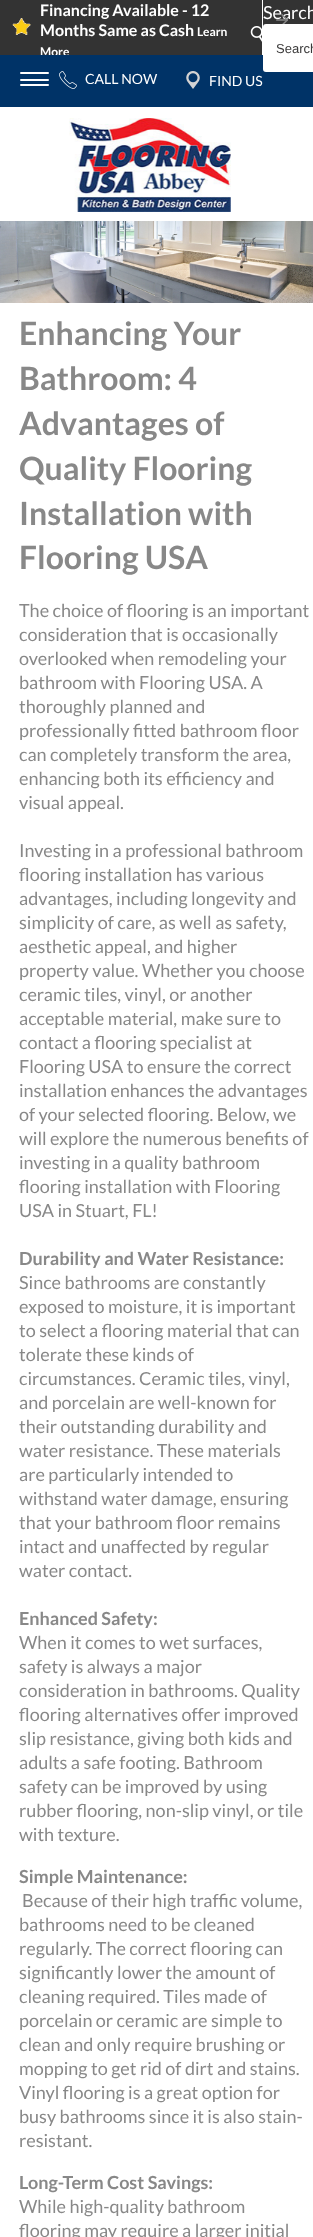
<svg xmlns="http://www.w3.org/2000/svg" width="313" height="2237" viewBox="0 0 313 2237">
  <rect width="100%" height="100%" fill="rgb(255,255,255)"/>
  <rect x="0" y="0" width="313" height="55" fill="rgb(51,51,51)"/>
  <image x="12" y="18" width="19" height="17" href="pic1.png"/>
  <g font-family="Lato" font-size="16" font-weight="bold" fill="rgb(255,255,255)">
    <text>
      <tspan x="40" y="16">Financing Available - 12</tspan>
      <tspan x="40" y="36">Months Same as Cash</tspan>
    </text>
  </g>
  <g font-family="Lato" font-size="12" font-weight="bold" fill="rgb(255,255,255)">
    <text x="197" y="36">Learn</text>
    <text x="40" y="56">More</text>
  </g>
  <rect x="262" y="0" width="1" height="55" fill="rgb(255,255,255)"/>
  <text x="263" y="19" font-family="Lato" font-size="18" fill="rgb(255,255,255)">Search</text>
  <image x="250" y="26" width="13" height="18" href="pic2.png"/>
  <image x="276" y="14" width="12" height="10" href="pic3.png"/>
  <rect x="0" y="55" width="313" height="52" fill="rgb(0,51,103)"/>
  <rect x="263" y="24" width="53" height="48" rx="3" fill="rgb(255,255,255)"/>
  <text x="276" y="53" font-family="Liberation Sans" font-size="13" fill="rgb(59,58,58)">Search</text>
  <image x="59" y="71" width="18" height="18" href="pic4.png"/>
  <text x="85" y="84" font-family="Lato" font-size="14" fill="rgb(255,255,255)">CALL NOW</text>
  <image x="186" y="71" width="14" height="18" href="pic5.png"/>
  <text x="209" y="86" font-family="Lato" font-size="14" fill="rgb(255,255,255)">FIND US</text>
  <rect x="20" y="72" width="29" height="2" rx="1" fill="rgb(255,255,255)"/>
  <rect x="33" y="79" width="16" height="2" rx="1" fill="rgb(255,255,255)"/>
  <rect x="20" y="79" width="16" height="2" rx="1" fill="rgb(255,255,255)"/>
  <rect x="20" y="84" width="29" height="2" rx="1" fill="rgb(255,255,255)"/>
  <image x="69" y="118" width="162" height="94" href="pic6.png"/>
  <image x="0" y="221" width="313" height="82" href="pic7.png"/>
  <g font-family="Lato" font-size="32" font-weight="bold" fill="rgb(136,136,136)">
    <text>
      <tspan x="19" y="345">Enhancing Your</tspan>
      <tspan x="19" y="390">Bathroom: 4</tspan>
      <tspan x="19" y="435">Advantages of</tspan>
      <tspan x="19" y="480">Quality Flooring</tspan>
      <tspan x="19" y="525">Installation with</tspan>
      <tspan x="19" y="569">Flooring USA</tspan>
    </text>
  </g>
  <g font-family="Lato" font-size="18" fill="rgb(136,136,136)">
    <text>
      <tspan x="19" y="617">The choice of flooring is an important</tspan>
      <tspan x="19" y="641">consideration that is occasionally</tspan>
      <tspan x="19" y="665">overlooked when remodeling your</tspan>
      <tspan x="19" y="689">bathroom with Flooring USA. A</tspan>
      <tspan x="19" y="713">thoroughly planned and</tspan>
      <tspan x="19" y="737">professionally fitted bathroom floor</tspan>
      <tspan x="19" y="761">can completely transform the area,</tspan>
      <tspan x="19" y="785">enhancing both its efficiency and</tspan>
      <tspan x="19" y="809">visual appeal.</tspan>
    </text>
    <text>
      <tspan x="19" y="857">Investing in a professional bathroom</tspan>
      <tspan x="19" y="881">flooring installation has various</tspan>
      <tspan x="19" y="905">advantages, including longevity and</tspan>
      <tspan x="19" y="929">simplicity of care, as well as safety,</tspan>
      <tspan x="19" y="953">aesthetic appeal, and higher</tspan>
      <tspan x="19" y="977">property value. Whether you choose</tspan>
      <tspan x="19" y="1001">ceramic tiles, vinyl, or another</tspan>
      <tspan x="19" y="1025">acceptable material, make sure to</tspan>
      <tspan x="19" y="1049">contact a flooring specialist at</tspan>
      <tspan x="19" y="1073">Flooring USA to ensure the correct</tspan>
      <tspan x="19" y="1097">installation enhances the advantages</tspan>
      <tspan x="19" y="1121">of your selected flooring. Below, we</tspan>
      <tspan x="19" y="1145">will explore the numerous benefits of</tspan>
      <tspan x="19" y="1169">investing in a quality bathroom</tspan>
      <tspan x="19" y="1193">flooring installation with Flooring</tspan>
      <tspan x="19" y="1217">USA in Stuart, FL!</tspan>
    </text>
  </g>
  <text x="19" y="1265" font-family="Lato" font-size="18" font-weight="bold" fill="rgb(136,136,136)">Durability and Water Resistance:</text>
  <g font-family="Lato" font-size="18" fill="rgb(136,136,136)">
    <text>
      <tspan x="19" y="1289">Since bathrooms are constantly</tspan>
      <tspan x="19" y="1313">exposed to moisture, it is important</tspan>
      <tspan x="19" y="1337">to select a flooring material that can</tspan>
      <tspan x="19" y="1361">tolerate these kinds of</tspan>
      <tspan x="19" y="1385">circumstances. Ceramic tiles, vinyl,</tspan>
      <tspan x="19" y="1409">and porcelain are well-known for</tspan>
      <tspan x="19" y="1433">their outstanding durability and</tspan>
      <tspan x="19" y="1457">water resistance. These materials</tspan>
      <tspan x="19" y="1481">are particularly intended to</tspan>
      <tspan x="19" y="1505">withstand water damage, ensuring</tspan>
      <tspan x="19" y="1529">that your bathroom floor remains</tspan>
      <tspan x="19" y="1553">intact and unaffected by regular</tspan>
      <tspan x="19" y="1577">water contact.</tspan>
    </text>
  </g>
  <text x="19" y="1625" font-family="Lato" font-size="18" font-weight="bold" fill="rgb(136,136,136)">Enhanced Safety:</text>
  <g font-family="Lato" font-size="18" fill="rgb(136,136,136)">
    <text>
      <tspan x="19" y="1649">When it comes to wet surfaces,</tspan>
      <tspan x="19" y="1673">safety is always a major</tspan>
      <tspan x="19" y="1697">consideration in bathrooms. Quality</tspan>
      <tspan x="19" y="1721">flooring alternatives offer improved</tspan>
      <tspan x="19" y="1745">slip resistance, giving both kids and</tspan>
      <tspan x="19" y="1769">adults a safe footing. Bathroom</tspan>
      <tspan x="19" y="1793">safety can be improved by using</tspan>
      <tspan x="19" y="1817">rubber flooring, non-slip vinyl, or tile</tspan>
      <tspan x="19" y="1841">with texture.</tspan>
    </text>
  </g>
  <text x="19" y="1883" font-family="Lato" font-size="18" font-weight="bold" fill="rgb(136,136,136)">Simple Maintenance:</text>
  <g font-family="Lato" font-size="18" fill="rgb(136,136,136)">
    <text x="22" y="1907">Because of their high traffic volume,</text>
    <text>
      <tspan x="19" y="1931">bathrooms need to be cleaned</tspan>
      <tspan x="19" y="1955">regularly. The correct flooring can</tspan>
      <tspan x="19" y="1979">significantly lower the amount of</tspan>
      <tspan x="19" y="2003">cleaning required. Tiles made of</tspan>
      <tspan x="19" y="2027">porcelain or ceramic are simple to</tspan>
      <tspan x="19" y="2051">clean and only require brushing or</tspan>
      <tspan x="19" y="2075">mopping to get rid of dirt and stains.</tspan>
      <tspan x="19" y="2099">Vinyl flooring is a great option for</tspan>
      <tspan x="19" y="2123">busy bathrooms since it is also stain-</tspan>
      <tspan x="19" y="2147">resistant.</tspan>
    </text>
  </g>
  <text x="19" y="2189" font-family="Lato" font-size="18" font-weight="bold" fill="rgb(136,136,136)">Long-Term Cost Savings:</text>
  <g font-family="Lato" font-size="18" fill="rgb(136,136,136)">
    <text>
      <tspan x="19" y="2213">While high-quality bathroom</tspan>
      <tspan x="19" y="2237">flooring may require a larger initial</tspan>
    </text>
  </g>
</svg>
